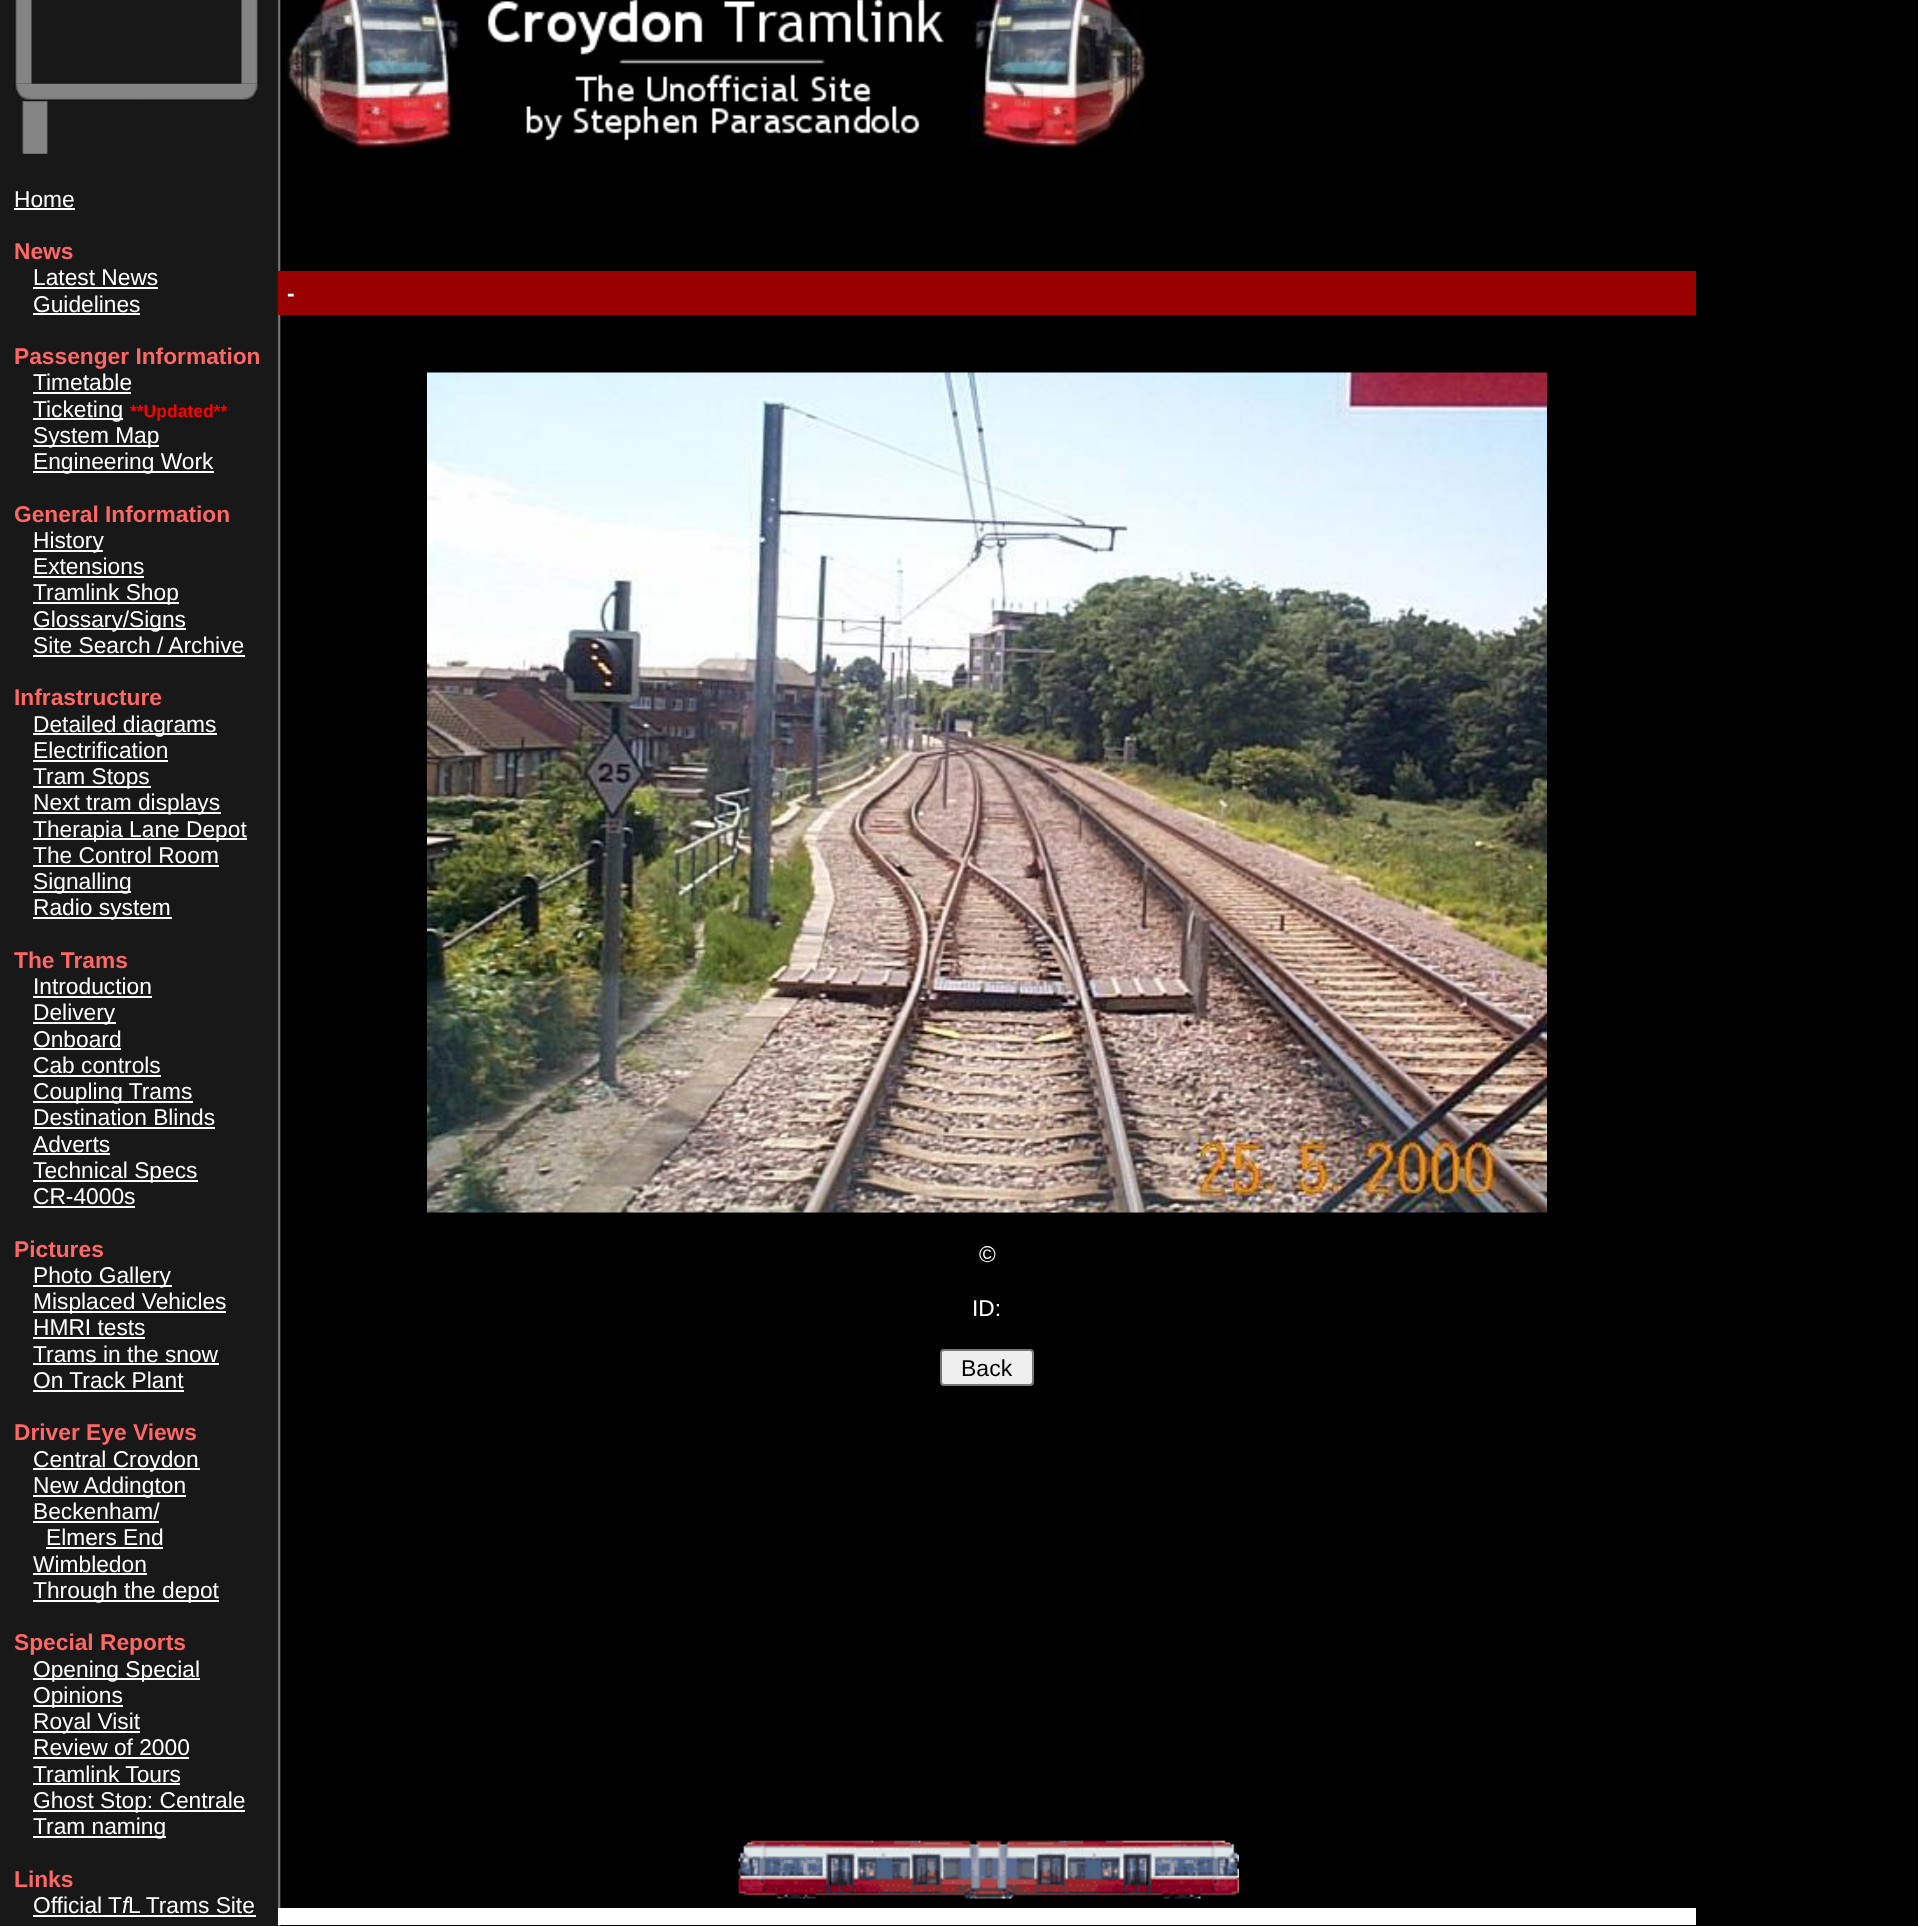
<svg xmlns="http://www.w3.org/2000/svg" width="1918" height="1926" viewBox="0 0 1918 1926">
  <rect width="100%" height="100%" fill="rgb(0,0,0)"/>
  <image x="0" y="0" width="281" height="1926" href="pic1.png"/>
  <image x="14" y="0" width="18" height="84" href="pic2.png"/>
  <image x="241" y="0" width="18" height="84" href="pic3.png"/>
  <image x="14" y="83" width="244" height="19" href="pic4.png"/>
  <image x="22" y="101" width="26" height="53" href="pic5.png"/>
  <text x="14" y="207" font-family="Liberation Sans" font-size="22.75" fill="rgb(255,255,255)">Home</text>
  <rect x="14" y="208" width="61" height="2" fill="rgb(255,255,255)"/>
  <text x="14" y="259" font-family="Liberation Sans" font-size="22.75" font-weight="bold" fill="rgb(255,102,102)">News</text>
  <text x="33" y="285" font-family="Liberation Sans" font-size="22.75" fill="rgb(255,255,255)">Latest News</text>
  <rect x="33" y="287" width="125" height="2" fill="rgb(255,255,255)"/>
  <text x="33" y="312" font-family="Liberation Sans" font-size="22.75" fill="rgb(255,255,255)">Guidelines</text>
  <rect x="33" y="313" width="107" height="2" fill="rgb(255,255,255)"/>
  <text x="14" y="364" font-family="Liberation Sans" font-size="22.75" font-weight="bold" fill="rgb(255,102,102)">Passenger Information</text>
  <text x="33" y="390" font-family="Liberation Sans" font-size="22.75" fill="rgb(255,255,255)">Timetable</text>
  <rect x="33" y="392" width="98" height="2" fill="rgb(255,255,255)"/>
  <rect x="33" y="418" width="90" height="2" fill="rgb(255,255,255)"/>
  <text x="33" y="417" font-family="Liberation Sans" font-size="22.75" fill="rgb(255,255,255)">Ticketing</text>
  <text x="130" y="417" font-family="Liberation Sans" font-size="17.5" font-weight="bold" fill="rgb(255,0,0)">**Updated**</text>
  <rect x="33" y="445" width="126" height="2" fill="rgb(255,255,255)"/>
  <text x="33" y="443" font-family="Liberation Sans" font-size="22.75" fill="rgb(255,255,255)">System Map</text>
  <rect x="33" y="471" width="181" height="2" fill="rgb(255,255,255)"/>
  <text x="33" y="469" font-family="Liberation Sans" font-size="22.75" fill="rgb(255,255,255)">Engineering Work</text>
  <text x="14" y="522" font-family="Liberation Sans" font-size="22.75" font-weight="bold" fill="rgb(255,102,102)">General Information</text>
  <rect x="33" y="550" width="70" height="2" fill="rgb(255,255,255)"/>
  <g font-family="Liberation Sans" font-size="22.75" fill="rgb(255,255,255)">
    <text>
      <tspan x="33" y="548">History</tspan>
      <tspan x="33" y="574">Extensions</tspan>
    </text>
  </g>
  <rect x="33" y="576" width="111" height="2" fill="rgb(255,255,255)"/>
  <rect x="33" y="602" width="146" height="2" fill="rgb(255,255,255)"/>
  <text x="33" y="600" font-family="Liberation Sans" font-size="22.75" fill="rgb(255,255,255)">Tramlink Shop</text>
  <rect x="33" y="628" width="153" height="2" fill="rgb(255,255,255)"/>
  <g font-family="Liberation Sans" font-size="22.75" fill="rgb(255,255,255)">
    <text>
      <tspan x="33" y="627">Glossary/Signs</tspan>
      <tspan x="33" y="653">Site Search / Archive</tspan>
    </text>
  </g>
  <rect x="33" y="655" width="212" height="2" fill="rgb(255,255,255)"/>
  <text x="14" y="705" font-family="Liberation Sans" font-size="22.75" font-weight="bold" fill="rgb(255,102,102)">Infrastructure</text>
  <rect x="33" y="733" width="184" height="2" fill="rgb(255,255,255)"/>
  <g font-family="Liberation Sans" font-size="22.75" fill="rgb(255,255,255)">
    <text>
      <tspan x="33" y="732">Detailed diagrams</tspan>
      <tspan x="33" y="758">Electrification</tspan>
    </text>
  </g>
  <rect x="33" y="760" width="135" height="2" fill="rgb(255,255,255)"/>
  <rect x="33" y="786" width="118" height="2" fill="rgb(255,255,255)"/>
  <text x="33" y="784" font-family="Liberation Sans" font-size="22.75" fill="rgb(255,255,255)">Tram Stops</text>
  <rect x="33" y="812" width="188" height="2" fill="rgb(255,255,255)"/>
  <text x="33" y="810" font-family="Liberation Sans" font-size="22.75" fill="rgb(255,255,255)">Next tram displays</text>
  <rect x="33" y="838" width="214" height="2" fill="rgb(255,255,255)"/>
  <g font-family="Liberation Sans" font-size="22.75" fill="rgb(255,255,255)">
    <text>
      <tspan x="33" y="837">Therapia Lane Depot</tspan>
      <tspan x="33" y="863">The Control Room</tspan>
    </text>
  </g>
  <rect x="33" y="865" width="186" height="2" fill="rgb(255,255,255)"/>
  <rect x="33" y="891" width="98" height="2" fill="rgb(255,255,255)"/>
  <text x="33" y="889" font-family="Liberation Sans" font-size="22.75" fill="rgb(255,255,255)">Signalling</text>
  <rect x="33" y="917" width="139" height="2" fill="rgb(255,255,255)"/>
  <text x="33" y="915" font-family="Liberation Sans" font-size="22.75" fill="rgb(255,255,255)">Radio system</text>
  <text x="14" y="968" font-family="Liberation Sans" font-size="22.75" font-weight="bold" fill="rgb(255,102,102)">The Trams</text>
  <text x="33" y="994" font-family="Liberation Sans" font-size="22.75" fill="rgb(255,255,255)">Introduction</text>
  <rect x="33" y="996" width="119" height="2" fill="rgb(255,255,255)"/>
  <rect x="33" y="1022" width="83" height="2" fill="rgb(255,255,255)"/>
  <g font-family="Liberation Sans" font-size="22.75" fill="rgb(255,255,255)">
    <text>
      <tspan x="33" y="1020">Delivery</tspan>
      <tspan x="33" y="1047">Onboard</tspan>
    </text>
  </g>
  <rect x="33" y="1048" width="88" height="2" fill="rgb(255,255,255)"/>
  <text x="33" y="1073" font-family="Liberation Sans" font-size="22.75" fill="rgb(255,255,255)">Cab controls</text>
  <rect x="33" y="1075" width="128" height="2" fill="rgb(255,255,255)"/>
  <rect x="33" y="1101" width="160" height="2" fill="rgb(255,255,255)"/>
  <g font-family="Liberation Sans" font-size="22.75" fill="rgb(255,255,255)">
    <text>
      <tspan x="33" y="1099">Coupling Trams</tspan>
      <tspan x="33" y="1125">Destination Blinds</tspan>
    </text>
  </g>
  <rect x="33" y="1127" width="182" height="2" fill="rgb(255,255,255)"/>
  <text x="33" y="1152" font-family="Liberation Sans" font-size="22.75" fill="rgb(255,255,255)">Adverts</text>
  <rect x="33" y="1153" width="77" height="2" fill="rgb(255,255,255)"/>
  <rect x="33" y="1180" width="165" height="2" fill="rgb(255,255,255)"/>
  <g font-family="Liberation Sans" font-size="22.75" fill="rgb(255,255,255)">
    <text>
      <tspan x="33" y="1178">Technical Specs</tspan>
      <tspan x="33" y="1204">CR-4000s</tspan>
    </text>
  </g>
  <rect x="33" y="1206" width="102" height="2" fill="rgb(255,255,255)"/>
  <text x="14" y="1257" font-family="Liberation Sans" font-size="22.75" font-weight="bold" fill="rgb(255,102,102)">Pictures</text>
  <rect x="33" y="1285" width="139" height="2" fill="rgb(255,255,255)"/>
  <text x="33" y="1283" font-family="Liberation Sans" font-size="22.75" fill="rgb(255,255,255)">Photo Gallery</text>
  <rect x="33" y="1311" width="193" height="2" fill="rgb(255,255,255)"/>
  <g font-family="Liberation Sans" font-size="22.75" fill="rgb(255,255,255)">
    <text>
      <tspan x="33" y="1309">Misplaced Vehicles</tspan>
      <tspan x="33" y="1335">HMRI tests</tspan>
    </text>
  </g>
  <rect x="33" y="1337" width="112" height="2" fill="rgb(255,255,255)"/>
  <text x="33" y="1362" font-family="Liberation Sans" font-size="22.75" fill="rgb(255,255,255)">Trams in the snow</text>
  <rect x="33" y="1363" width="186" height="2" fill="rgb(255,255,255)"/>
  <text x="33" y="1388" font-family="Liberation Sans" font-size="22.75" fill="rgb(255,255,255)">On Track Plant</text>
  <rect x="33" y="1390" width="151" height="2" fill="rgb(255,255,255)"/>
  <text x="14" y="1440" font-family="Liberation Sans" font-size="22.75" font-weight="bold" fill="rgb(255,102,102)">Driver Eye Views</text>
  <rect x="33" y="1468" width="167" height="2" fill="rgb(255,255,255)"/>
  <text x="33" y="1467" font-family="Liberation Sans" font-size="22.75" fill="rgb(255,255,255)">Central Croydon</text>
  <rect x="33" y="1495" width="153" height="2" fill="rgb(255,255,255)"/>
  <g font-family="Liberation Sans" font-size="22.75" fill="rgb(255,255,255)">
    <text>
      <tspan x="33" y="1493">New Addington</tspan>
      <tspan x="33" y="1519">Beckenham/</tspan>
    </text>
  </g>
  <rect x="33" y="1521" width="126" height="2" fill="rgb(255,255,255)"/>
  <text x="46" y="1545" font-family="Liberation Sans" font-size="22.75" fill="rgb(255,255,255)">Elmers End</text>
  <rect x="46" y="1547" width="117" height="2" fill="rgb(255,255,255)"/>
  <text x="33" y="1572" font-family="Liberation Sans" font-size="22.75" fill="rgb(255,255,255)">Wimbledon</text>
  <rect x="33" y="1573" width="114" height="2" fill="rgb(255,255,255)"/>
  <rect x="33" y="1600" width="186" height="2" fill="rgb(255,255,255)"/>
  <text x="33" y="1598" font-family="Liberation Sans" font-size="22.75" fill="rgb(255,255,255)">Through the depot</text>
  <text x="14" y="1650" font-family="Liberation Sans" font-size="22.75" font-weight="bold" fill="rgb(255,102,102)">Special Reports</text>
  <rect x="33" y="1678" width="167" height="2" fill="rgb(255,255,255)"/>
  <text x="33" y="1677" font-family="Liberation Sans" font-size="22.75" fill="rgb(255,255,255)">Opening Special</text>
  <rect x="33" y="1705" width="90" height="2" fill="rgb(255,255,255)"/>
  <text x="33" y="1703" font-family="Liberation Sans" font-size="22.75" fill="rgb(255,255,255)">Opinions</text>
  <rect x="33" y="1731" width="107" height="2" fill="rgb(255,255,255)"/>
  <g font-family="Liberation Sans" font-size="22.75" fill="rgb(255,255,255)">
    <text>
      <tspan x="33" y="1729">Royal Visit</tspan>
      <tspan x="33" y="1755">Review of 2000</tspan>
    </text>
  </g>
  <rect x="33" y="1757" width="156" height="2" fill="rgb(255,255,255)"/>
  <text x="33" y="1782" font-family="Liberation Sans" font-size="22.75" fill="rgb(255,255,255)">Tramlink Tours</text>
  <rect x="33" y="1783" width="147" height="2" fill="rgb(255,255,255)"/>
  <rect x="33" y="1810" width="212" height="2" fill="rgb(255,255,255)"/>
  <text x="33" y="1808" font-family="Liberation Sans" font-size="22.75" fill="rgb(255,255,255)">Ghost Stop: Centrale</text>
  <rect x="33" y="1836" width="133" height="2" fill="rgb(255,255,255)"/>
  <text x="33" y="1834" font-family="Liberation Sans" font-size="22.75" fill="rgb(255,255,255)">Tram naming</text>
  <text x="14" y="1887" font-family="Liberation Sans" font-size="22.75" font-weight="bold" fill="rgb(255,102,102)">Links</text>
  <text x="33" y="1913" font-family="Liberation Sans" font-size="22.75" fill="rgb(255,255,255)">Official</text>
  <rect x="33" y="1915" width="223" height="2" fill="rgb(255,255,255)"/>
  <text x="108" y="1913" font-family="Liberation Sans" font-size="22.75" fill="rgb(255,255,255)">T</text>
  <text x="122" y="1913" font-family="Liberation Sans" font-size="22.75" font-style="italic" fill="rgb(255,255,255)">f</text>
  <text x="128" y="1913" font-family="Liberation Sans" font-size="22.75" fill="rgb(255,255,255)">L Trams Site</text>
  <image x="287" y="0" width="175" height="147" href="pic6.png"/>
  <image x="487" y="0" width="457" height="141" href="pic7.png"/>
  <image x="971" y="0" width="175" height="147" href="pic8.png"/>
  <rect x="278" y="271" width="1418" height="44" fill="rgb(153,0,0)"/>
  <text x="287" y="301" font-family="Liberation Sans" font-size="22.75" font-weight="bold" fill="rgb(255,255,255)">-</text>
  <image x="427" y="372" width="1120" height="841" href="pic9.png"/>
  <g font-family="Liberation Sans" font-size="22.75" fill="rgb(255,255,255)">
    <text x="979" y="1262">©</text>
    <text x="972" y="1316">ID:</text>
  </g>
  <rect x="941" y="1350" width="92" height="35" rx="3" fill="rgb(239,239,239)" stroke="rgb(118,118,118)" stroke-width="2"/>
  <text x="961" y="1376" font-family="Liberation Sans" font-size="23" fill="rgb(0,0,0)">Back</text>
  <image x="738" y="1840" width="501" height="59" href="pic10.png"/>
  <rect x="278" y="1908" width="1418" height="17" fill="rgb(255,255,255)"/>
</svg>
